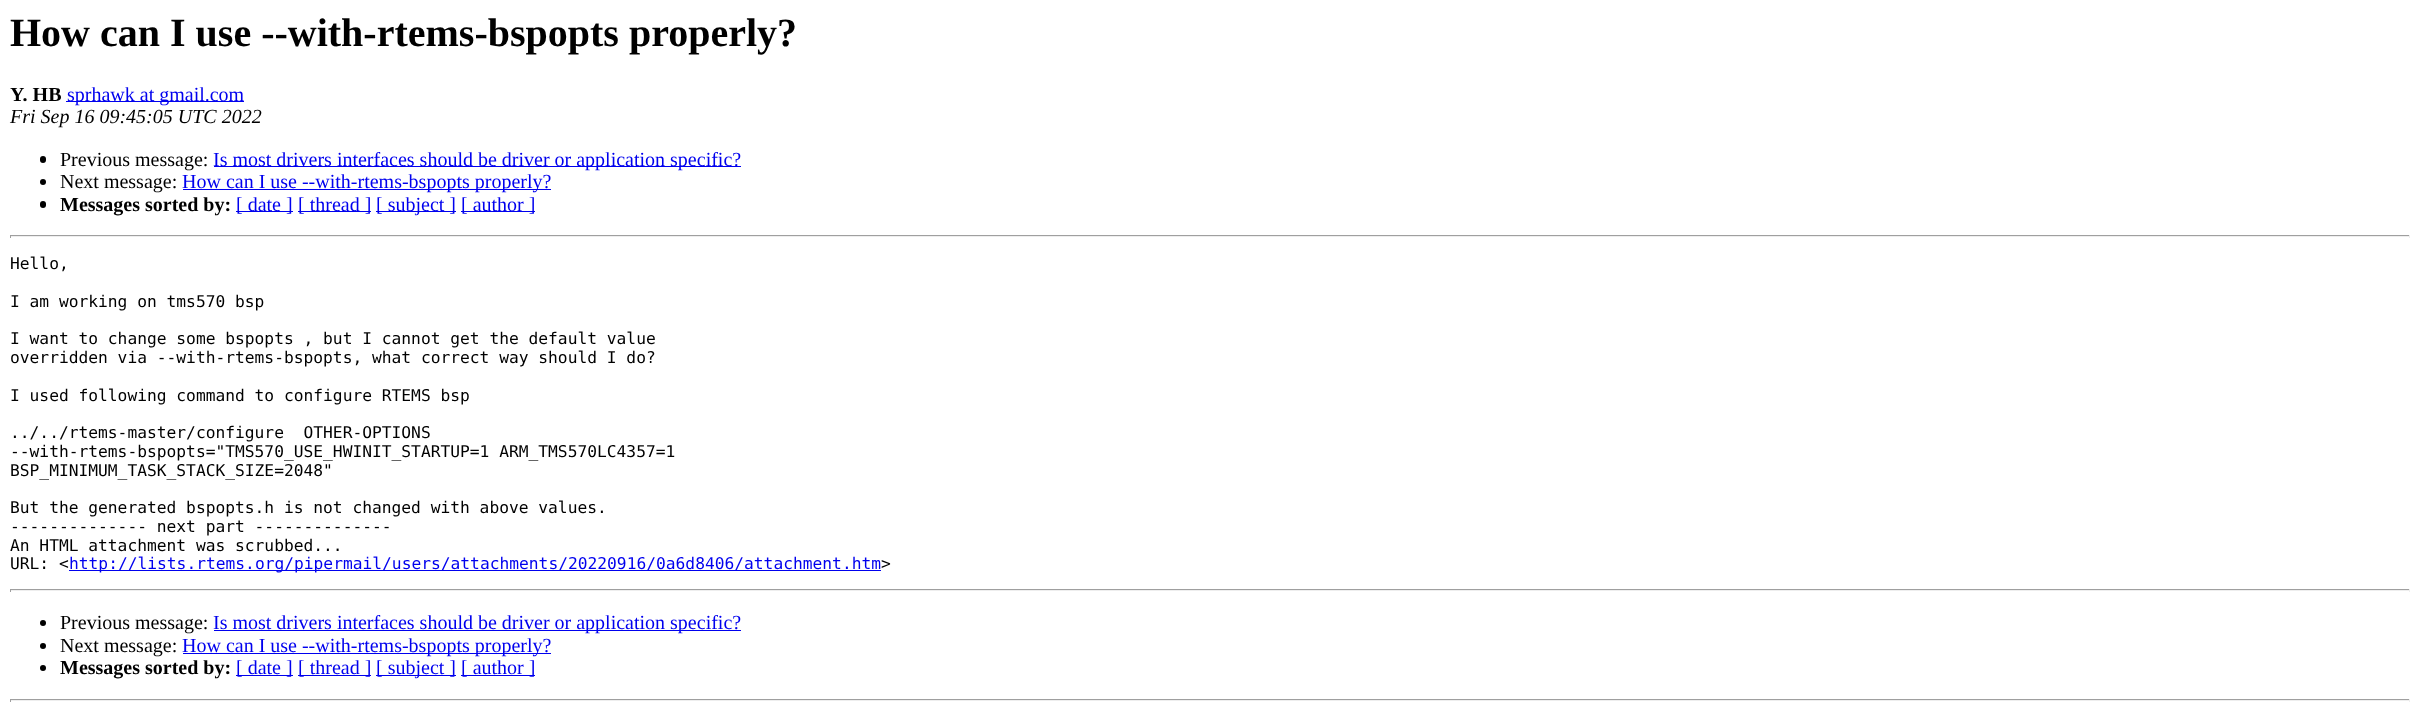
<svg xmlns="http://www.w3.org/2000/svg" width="2419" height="716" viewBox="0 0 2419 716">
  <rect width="100%" height="100%" fill="rgb(255,255,255)"/>
  <text x="10" y="46" font-family="Liberation Serif" font-size="40" font-weight="bold" fill="rgb(0,0,0)">How can I use --with-rtems-bspopts properly?</text>
  <text x="10" y="101" font-family="Liberation Serif" font-size="20" font-weight="bold" fill="rgb(0,0,0)">Y. HB</text>
  <rect x="66" y="101" width="178" height="1" fill="rgb(0,0,238)"/>
  <text x="67" y="101" font-family="Liberation Serif" font-size="20" fill="rgb(0,0,238)">sprhawk at gmail.com</text>
  <text x="10" y="123" font-family="Liberation Serif" font-size="20" font-style="italic" fill="rgb(0,0,0)">Fri Sep 16 09:45:05 UTC 2022</text>
  <rect x="40" y="156" width="6" height="7" rx="3" fill="rgb(0,0,0)"/>
  <text x="60" y="166" font-family="Liberation Serif" font-size="20" fill="rgb(0,0,0)">Previous message:</text>
  <rect x="214" y="166" width="527" height="1" fill="rgb(0,0,238)"/>
  <text x="213" y="166" font-family="Liberation Serif" font-size="20" fill="rgb(0,0,238)">Is most drivers interfaces should be driver or application specific?</text>
  <circle cx="43" cy="182" r="3" fill="rgb(0,0,0)"/>
  <text x="60" y="188" font-family="Liberation Serif" font-size="20" fill="rgb(0,0,0)">Next message:</text>
  <rect x="183" y="189" width="368" height="1" fill="rgb(0,0,238)"/>
  <text x="182" y="188" font-family="Liberation Serif" font-size="20" fill="rgb(0,0,238)">How can I use --with-rtems-bspopts properly?</text>
  <rect x="40" y="201" width="6" height="7" rx="3" fill="rgb(0,0,0)"/>
  <text x="60" y="211" font-family="Liberation Serif" font-size="20" font-weight="bold" fill="rgb(0,0,0)">Messages sorted by:</text>
  <rect x="236" y="211" width="57" height="1" fill="rgb(0,0,238)"/>
  <text x="236" y="211" font-family="Liberation Serif" font-size="20" fill="rgb(0,0,238)">[ date ]</text>
  <rect x="298" y="211" width="73" height="1" fill="rgb(0,0,238)"/>
  <text x="298" y="211" font-family="Liberation Serif" font-size="20" fill="rgb(0,0,238)">[ thread ]</text>
  <rect x="376" y="211" width="80" height="1" fill="rgb(0,0,238)"/>
  <text x="376" y="211" font-family="Liberation Serif" font-size="20" fill="rgb(0,0,238)">[ subject ]</text>
  <rect x="461" y="211" width="74" height="1" fill="rgb(0,0,238)"/>
  <text x="461" y="211" font-family="Liberation Serif" font-size="20" fill="rgb(0,0,238)">[ author ]</text>
  <rect x="10" y="235" width="2400" height="1" fill="rgb(159,159,159)"/>
  <rect x="2409" y="235" width="1" height="3" fill="rgb(238,238,238)"/>
  <rect x="10" y="236" width="2400" height="1" fill="rgb(238,238,238)"/>
  <rect x="10" y="235" width="1" height="3" fill="rgb(159,159,159)"/>
  <g font-family="DejaVu Sans Mono" font-size="16.25" fill="rgb(0,0,0)">
    <text x="10" y="269">Hello,</text>
    <text x="10" y="307">I am working on tms570 bsp</text>
    <text>
      <tspan x="10" y="344">I want to change some bspopts , but I cannot get the default value</tspan>
      <tspan x="10" y="363">overridden via --with-rtems-bspopts, what correct way should I do?</tspan>
    </text>
    <text x="10" y="401">I used following command to configure RTEMS bsp</text>
    <text xml:space="preserve"><tspan x="10" y="438">../../rtems-master/configure  OTHER-OPTIONS</tspan><tspan x="10" y="457">--with-rtems-bspopts="TMS570_USE_HWINIT_STARTUP=1 ARM_TMS570LC4357=1</tspan><tspan x="10" y="476">BSP_MINIMUM_TASK_STACK_SIZE=2048"</tspan></text>
    <text>
      <tspan x="10" y="513">But the generated bspopts.h is not changed with above values.</tspan>
      <tspan x="10" y="532">-------------- next part --------------</tspan>
      <tspan x="10" y="551">An HTML attachment was scrubbed...</tspan>
      <tspan x="10" y="569">URL: &lt;</tspan>
    </text>
  </g>
  <rect x="69" y="570" width="812" height="1" fill="rgb(0,0,238)"/>
  <text x="69" y="569" font-family="DejaVu Sans Mono" font-size="16.25" fill="rgb(0,0,238)">http://lists.rtems.org/pipermail/users/attachments/20220916/0a6d8406/attachment.htm</text>
  <text x="881" y="569" font-family="DejaVu Sans Mono" font-size="16.25" fill="rgb(0,0,0)">&gt;</text>
  <rect x="10" y="589" width="2400" height="1" fill="rgb(159,159,159)"/>
  <rect x="2409" y="589" width="1" height="3" fill="rgb(238,238,238)"/>
  <rect x="10" y="590" width="2400" height="1" fill="rgb(238,238,238)"/>
  <rect x="10" y="589" width="1" height="3" fill="rgb(159,159,159)"/>
  <circle cx="43" cy="623" r="3" fill="rgb(0,0,0)"/>
  <text x="60" y="629" font-family="Liberation Serif" font-size="20" fill="rgb(0,0,0)">Previous message:</text>
  <rect x="214" y="630" width="527" height="1" fill="rgb(0,0,238)"/>
  <text x="213" y="629" font-family="Liberation Serif" font-size="20" fill="rgb(0,0,238)">Is most drivers interfaces should be driver or application specific?</text>
  <circle cx="43" cy="646" r="3" fill="rgb(0,0,0)"/>
  <text x="60" y="652" font-family="Liberation Serif" font-size="20" fill="rgb(0,0,0)">Next message:</text>
  <rect x="183" y="653" width="368" height="1" fill="rgb(0,0,238)"/>
  <text x="182" y="652" font-family="Liberation Serif" font-size="20" fill="rgb(0,0,238)">How can I use --with-rtems-bspopts properly?</text>
  <circle cx="43" cy="668" r="3" fill="rgb(0,0,0)"/>
  <text x="60" y="674" font-family="Liberation Serif" font-size="20" font-weight="bold" fill="rgb(0,0,0)">Messages sorted by:</text>
  <rect x="236" y="675" width="57" height="1" fill="rgb(0,0,238)"/>
  <text x="236" y="674" font-family="Liberation Serif" font-size="20" fill="rgb(0,0,238)">[ date ]</text>
  <rect x="298" y="675" width="73" height="1" fill="rgb(0,0,238)"/>
  <text x="298" y="674" font-family="Liberation Serif" font-size="20" fill="rgb(0,0,238)">[ thread ]</text>
  <rect x="376" y="675" width="80" height="1" fill="rgb(0,0,238)"/>
  <text x="376" y="674" font-family="Liberation Serif" font-size="20" fill="rgb(0,0,238)">[ subject ]</text>
  <rect x="461" y="675" width="74" height="1" fill="rgb(0,0,238)"/>
  <text x="461" y="674" font-family="Liberation Serif" font-size="20" fill="rgb(0,0,238)">[ author ]</text>
  <rect x="10" y="699" width="2400" height="1" fill="rgb(159,159,159)"/>
  <rect x="2409" y="699" width="1" height="3" fill="rgb(238,238,238)"/>
  <rect x="10" y="700" width="2400" height="1" fill="rgb(238,238,238)"/>
  <rect x="10" y="699" width="1" height="3" fill="rgb(159,159,159)"/>
</svg>
